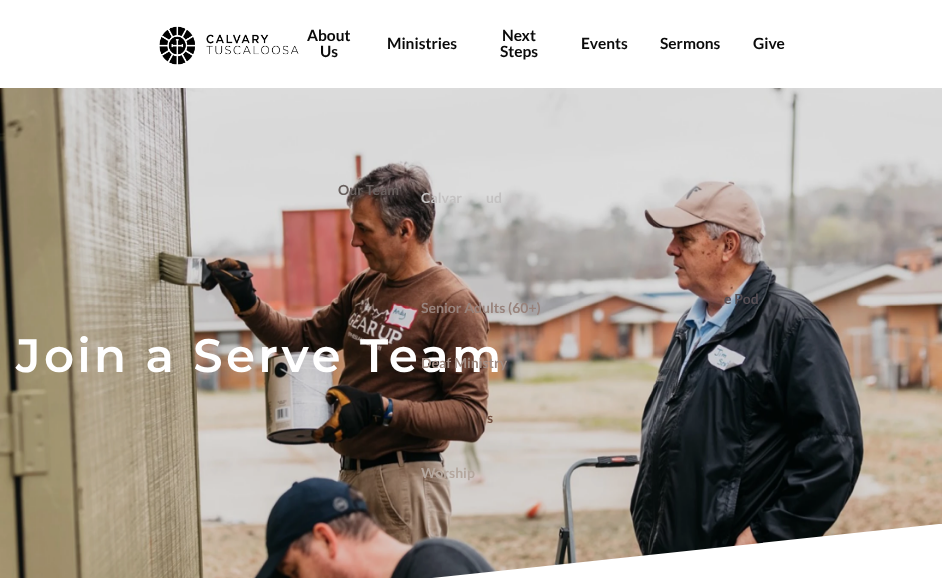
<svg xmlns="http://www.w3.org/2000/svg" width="942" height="578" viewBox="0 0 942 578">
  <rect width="100%" height="100%" fill="rgb(255,255,255)"/>
  <image x="0" y="88" width="942" height="490" href="pic1.png"/>
  <text x="16" y="372" font-family="Montserrat" font-size="46.75" font-weight="600" letter-spacing="3.25" fill="rgb(255,255,255)">Join a Serve Team</text>
  <path d="M0 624V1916L942 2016V524H939Z" fill="rgb(255,255,255)"/>
  <image x="159" y="26" width="140" height="39" href="pic2.png"/>
  <g font-family="Lato" font-size="15.5" font-weight="bold" fill="rgb(10,10,10)">
    <text x="307" y="41">About</text>
    <text x="320" y="57">Us</text>
  </g>
  <text x="338" y="195" font-family="Lato" font-size="14" font-weight="bold" fill="rgb(105,96,94)">Our Team</text>
  <g font-family="Lato" font-size="15.5" font-weight="bold" fill="rgb(10,10,10)">
    <text x="502" y="41">Next</text>
    <text x="500" y="57">Steps</text>
    <text x="387" y="49">Ministries</text>
  </g>
  <g font-family="Lato" font-size="14" font-weight="bold" fill="rgb(195,193,193)">
    <text x="421" y="203">Calvar</text>
    <text x="486" y="203">ud</text>
  </g>
  <text x="421" y="313" font-family="Lato" font-size="14" font-weight="bold" fill="rgb(152,131,124)">Senior Adults (60+)</text>
  <text x="421" y="368" font-family="Lato" font-size="14" font-weight="bold" fill="rgb(160,140,131)">Deaf Ministry</text>
  <text x="487" y="423" font-family="Lato" font-size="14" font-weight="bold" fill="rgb(116,81,66)">s</text>
  <text x="421" y="478" font-family="Lato" font-size="14" font-weight="bold" fill="rgb(180,167,158)">Worship</text>
  <g font-family="Lato" font-size="15.5" font-weight="bold" fill="rgb(10,10,10)">
    <text x="581" y="49">Events</text>
    <text x="660" y="49">Sermons</text>
  </g>
  <text x="727" y="249" font-family="Lato" font-size="14" font-weight="bold" fill="rgb(161,96,74)">f</text>
  <text x="724" y="304" font-family="Lato" font-size="14" font-weight="bold" fill="rgb(87,79,85)">e Pod</text>
  <text x="753" y="49" font-family="Lato" font-size="15.5" font-weight="bold" fill="rgb(10,10,10)">Give</text>
</svg>
